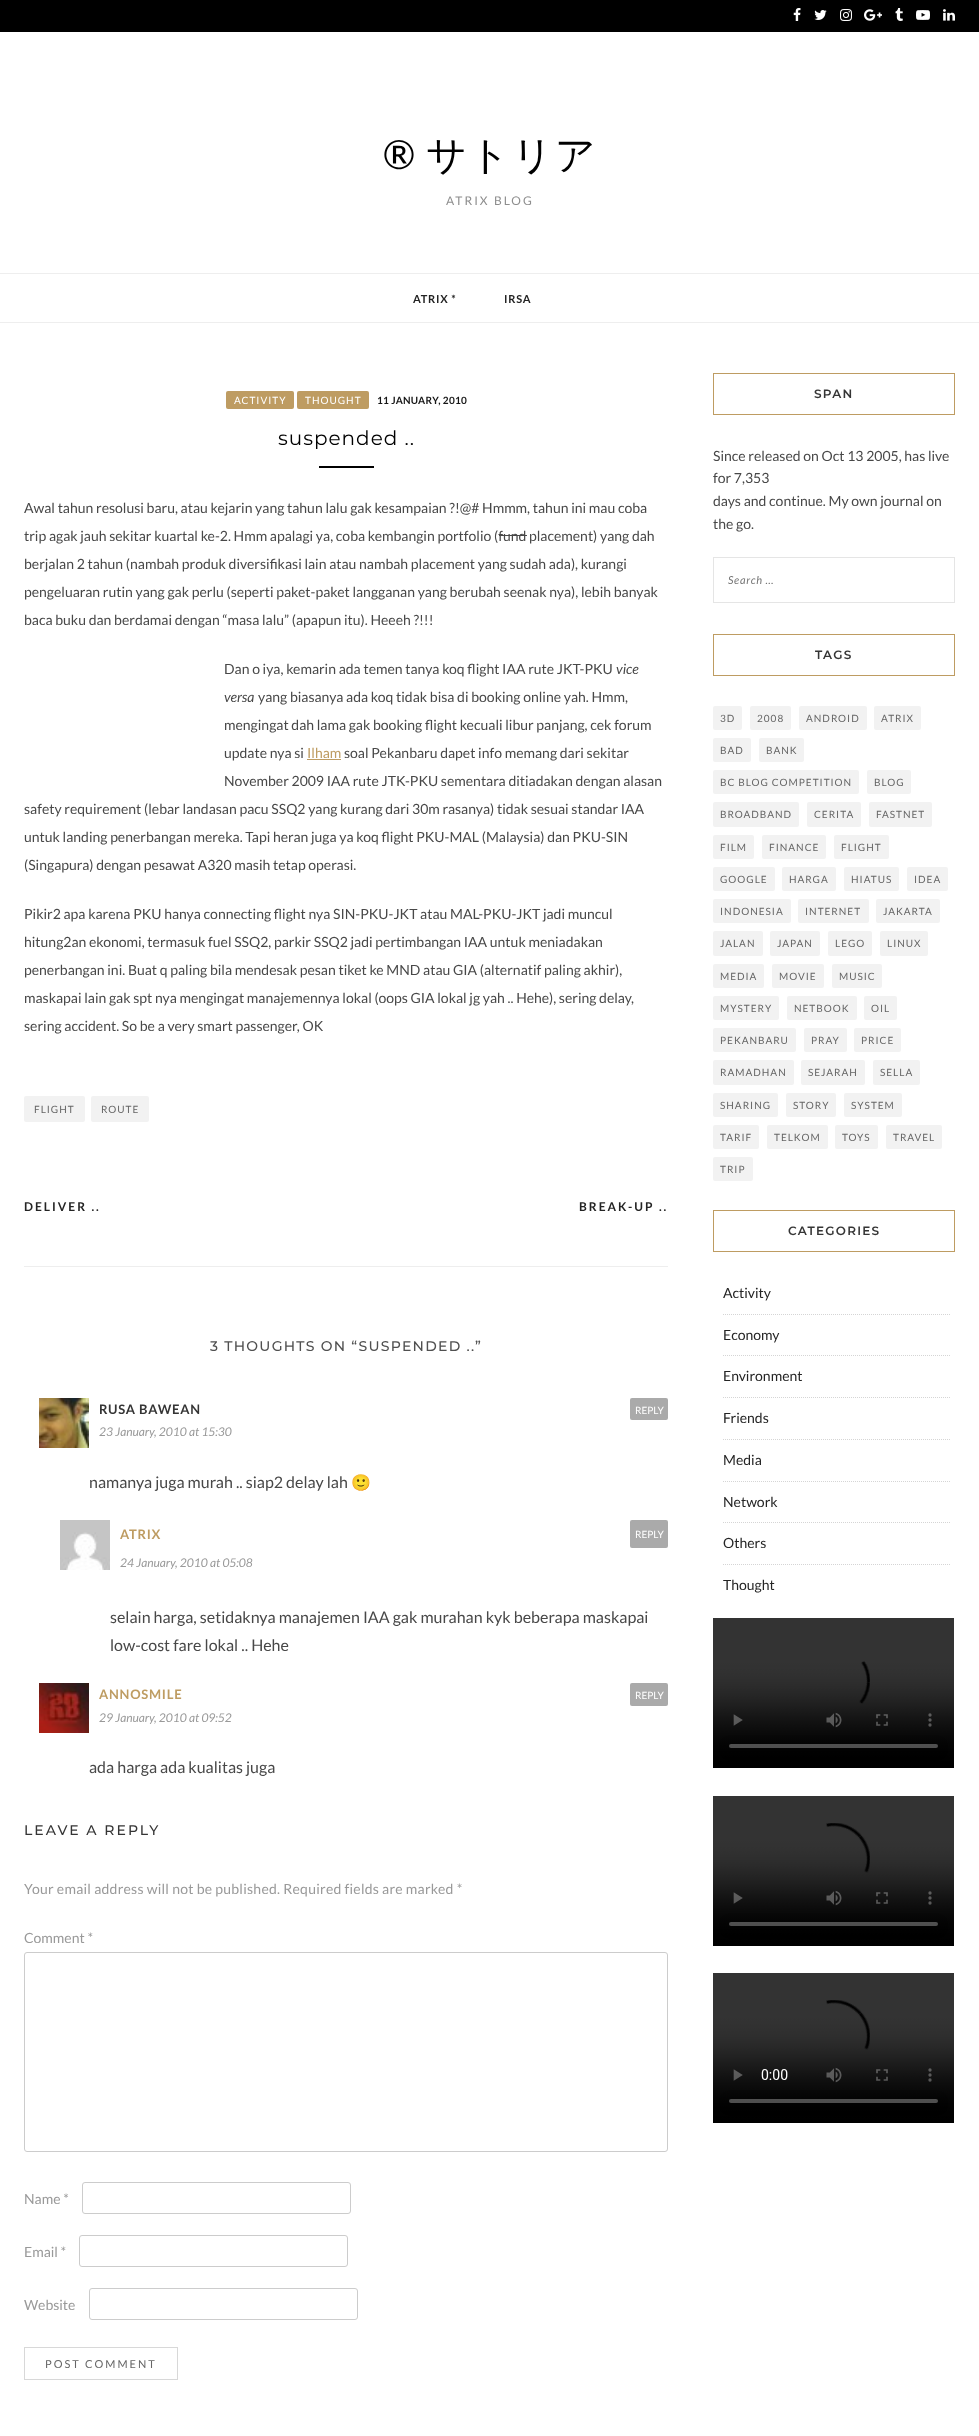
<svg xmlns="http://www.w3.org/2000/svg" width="979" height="2436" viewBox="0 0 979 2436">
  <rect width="100%" height="100%" fill="rgb(255,255,255)"/>
  <rect x="0" y="0" width="979" height="32" fill="rgb(0,0,0)"/>
  <image x="793" y="8" width="8" height="13" href="pic1.png"/>
  <image x="814" y="10" width="13" height="10" href="pic2.png"/>
  <image x="840" y="9" width="12" height="12" href="pic3.png"/>
  <image x="864" y="9" width="18" height="12" href="pic4.png"/>
  <image x="895" y="8" width="8" height="13" href="pic5.png"/>
  <image x="916" y="10" width="14" height="10" href="pic6.png"/>
  <image x="943" y="9" width="12" height="12" href="pic7.png"/>
  <text x="383" y="169" font-family="Lato" font-size="40" letter-spacing="2" fill="rgb(0,0,0)">®</text>
  <text x="426" y="169" font-family="WenQuanYi Zen Hei" font-size="40" font-weight="500" letter-spacing="2" fill="rgb(0,0,0)">サトリア</text>
  <text x="446" y="205" font-family="Lato" font-size="12" letter-spacing="2" fill="rgb(142,142,142)">ATRIX BLOG</text>
  <rect x="0" y="273" width="979" height="1" fill="rgb(238,238,238)"/>
  <rect x="0" y="322" width="979" height="1" fill="rgb(238,238,238)"/>
  <g font-family="Lato" font-size="11" font-weight="bold" letter-spacing="0.75" fill="rgb(36,36,36)">
    <text x="413" y="303">ATRIX *</text>
    <text x="504" y="303">IRSA</text>
  </g>
  <rect x="226" y="391" width="68" height="18" rx="2" fill="rgb(190,156,98)"/>
  <text x="234" y="404" font-family="Lato" font-size="10" letter-spacing="1" fill="rgb(255,255,255)">ACTIVITY</text>
  <rect x="297" y="391" width="72" height="18" rx="2" fill="rgb(190,156,98)"/>
  <text x="305" y="404" font-family="Lato" font-size="10" letter-spacing="1" fill="rgb(255,255,255)">THOUGHT</text>
  <text x="377" y="404" font-family="Lato" font-size="10" font-weight="bold" letter-spacing="0.25" fill="rgb(22,22,22)">11 JANUARY, 2010</text>
  <text x="278" y="445" font-family="Montserrat" font-size="20" letter-spacing="1" fill="rgb(0,0,0)">suspended ..</text>
  <rect x="319" y="466" width="55" height="2" fill="rgb(0,0,0)"/>
  <g font-family="Lato" font-size="14" fill="rgb(72,72,72)">
    <text x="24" y="513">Awal tahun resolusi baru, atau kejarin yang tahun lalu gak kesampaian ?!@# Hmmm, tahun ini mau coba</text>
    <text x="24" y="541">trip agak jauh sekitar kuartal ke-2. Hmm apalagi ya, coba kembangin portfolio (fund placement) yang dah</text>
  </g>
  <rect x="499" y="535" width="28" height="1" fill="rgb(72,72,72)"/>
  <g font-family="Lato" font-size="14" fill="rgb(72,72,72)">
    <text x="24" y="569">berjalan 2 tahun (nambah produk diversifikasi lain atau nambah placement yang sudah ada), kurangi</text>
    <text x="24" y="597">pengeluaran rutin yang gak perlu (seperti paket-paket langganan yang berubah seenak nya), lebih banyak</text>
    <text x="24" y="625">baca buku dan berdamai dengan “masa lalu” (apapun itu). Heeeh ?!!!</text>
    <text x="224" y="674">Dan o iya, kemarin ada temen tanya koq flight IAA rute JKT-PKU</text>
  </g>
  <g font-family="Lato" font-size="14" font-style="italic" fill="rgb(72,72,72)">
    <text x="616" y="674">vice</text>
    <text x="224" y="702">versa</text>
  </g>
  <g font-family="Lato" font-size="14" fill="rgb(72,72,72)">
    <text x="258" y="702">yang biasanya ada koq tidak bisa di booking online yah. Hmm,</text>
    <text x="224" y="730">mengingat dah lama gak booking flight kecuali libur panjang, cek forum</text>
    <text x="224" y="758">update nya si</text>
  </g>
  <text x="307" y="758" font-family="Lato" font-size="14" fill="rgb(190,156,98)">Ilham</text>
  <rect x="307" y="759" width="34" height="1" fill="rgb(190,156,98)"/>
  <g font-family="Lato" font-size="14" fill="rgb(72,72,72)">
    <text x="344" y="758">soal Pekanbaru dapet info memang dari sekitar</text>
    <text x="224" y="786">November 2009 IAA rute JTK-PKU sementara ditiadakan dengan alasan</text>
    <text x="24" y="814">safety requirement (lebar landasan pacu SSQ2 yang kurang dari 30m rasanya) tidak sesuai standar IAA</text>
    <text x="24" y="842">untuk landing penerbangan mereka. Tapi heran juga ya koq flight PKU-MAL (Malaysia) dan PKU-SIN</text>
    <text x="24" y="870">(Singapura) dengan pesawat A320 masih tetap operasi.</text>
    <text x="24" y="919">Pikir2 apa karena PKU hanya connecting flight nya SIN-PKU-JKT atau MAL-PKU-JKT jadi muncul</text>
    <text x="24" y="947">hitung2an ekonomi, termasuk fuel SSQ2, parkir SSQ2 jadi pertimbangan IAA untuk meniadakan</text>
    <text x="24" y="975">penerbangan ini. Buat q paling bila mendesak pesan tiket ke MND atau GIA (alternatif paling akhir),</text>
    <text x="24" y="1003">maskapai lain gak spt nya mengingat manajemennya lokal (oops GIA lokal jg yah .. Hehe), sering delay,</text>
    <text x="24" y="1031">sering accident. So be a very smart passenger, OK</text>
  </g>
  <rect x="24" y="1096" width="61" height="26" rx="2" fill="rgb(242,242,242)"/>
  <text x="34" y="1113" font-family="Lato" font-size="10" letter-spacing="1" fill="rgb(102,102,102)">FLIGHT</text>
  <rect x="91" y="1096" width="58" height="26" rx="2" fill="rgb(242,242,242)"/>
  <text x="101" y="1113" font-family="Lato" font-size="10" letter-spacing="1" fill="rgb(102,102,102)">ROUTE</text>
  <rect x="24" y="1266" width="644" height="1" fill="rgb(238,238,238)"/>
  <g font-family="Lato" font-size="12" font-weight="bold" letter-spacing="2" fill="rgb(36,36,36)">
    <text x="24" y="1211">DELIVER ..</text>
    <text x="579" y="1211">BREAK-UP ..</text>
  </g>
  <text x="210" y="1351" font-family="Montserrat" font-size="14" font-weight="500" letter-spacing="1.25" fill="rgb(80,80,80)">3 THOUGHTS ON “SUSPENDED ..”</text>
  <image x="39" y="1398" width="50" height="50" href="pic8.png"/>
  <text x="99" y="1414" font-family="Lato" font-size="13" font-weight="bold" letter-spacing="0.75" fill="rgb(53,53,53)">RUSA BAWEAN</text>
  <text x="99" y="1436" font-family="Lato" font-size="12" font-style="italic" fill="rgb(153,153,153)">23 January, 2010 at 15:30</text>
  <rect x="630" y="1398" width="38" height="22" rx="2" fill="rgb(170,170,170)"/>
  <text x="635" y="1414" font-family="Lato" font-size="10" fill="rgb(255,255,255)">REPLY</text>
  <text x="89" y="1488" font-family="Lato" font-size="16" fill="rgb(72,72,72)">namanya juga murah .. siap2 delay lah</text>
  <text x="351" y="1488" font-family="Noto Color Emoji" font-size="16" fill="rgb(72,72,72)">🙂</text>
  <image x="60" y="1520" width="50" height="50" href="pic9.png"/>
  <text x="120" y="1539" font-family="Lato" font-size="13" font-weight="bold" letter-spacing="0.75" fill="rgb(190,156,98)">ATRIX</text>
  <text x="120" y="1567" font-family="Lato" font-size="12" font-style="italic" fill="rgb(153,153,153)">24 January, 2010 at 05:08</text>
  <rect x="630" y="1520" width="38" height="28" rx="2" fill="rgb(170,170,170)"/>
  <text x="635" y="1538" font-family="Lato" font-size="10" fill="rgb(255,255,255)">REPLY</text>
  <g font-family="Lato" font-size="16" fill="rgb(72,72,72)">
    <text>
      <tspan x="110" y="1623">selain harga, setidaknya manajemen IAA gak murahan kyk beberapa maskapai</tspan>
      <tspan x="110" y="1651">low-cost fare lokal .. Hehe</tspan>
    </text>
  </g>
  <image x="39" y="1683" width="50" height="50" href="pic10.png"/>
  <text x="99" y="1699" font-family="Lato" font-size="13" font-weight="bold" letter-spacing="0.75" fill="rgb(190,156,98)">ANNOSMILE</text>
  <text x="99" y="1722" font-family="Lato" font-size="12" font-style="italic" fill="rgb(153,153,153)">29 January, 2010 at 09:52</text>
  <rect x="630" y="1683" width="38" height="23" rx="2" fill="rgb(170,170,170)"/>
  <text x="635" y="1699" font-family="Lato" font-size="10" fill="rgb(255,255,255)">REPLY</text>
  <text x="89" y="1773" font-family="Lato" font-size="16" fill="rgb(72,72,72)">ada harga ada kualitas juga</text>
  <text x="24" y="1835" font-family="Montserrat" font-size="14" font-weight="500" letter-spacing="2" fill="rgb(53,53,53)">LEAVE A REPLY</text>
  <text x="24" y="1894" font-family="Lato" font-size="14" letter-spacing="0.25" fill="rgb(153,153,153)">Your email address will not be published. Required fields are marked *</text>
  <text x="24" y="1943" font-family="Lato" font-size="14" fill="rgb(153,153,153)">Comment *</text>
  <rect x="24.5" y="1952.5" width="643" height="199" rx="2.5" fill="none" stroke="rgb(204,204,204)"/>
  <text x="24" y="2204" font-family="Lato" font-size="14" fill="rgb(153,153,153)">Name *</text>
  <rect x="82.5" y="2182.5" width="268" height="31" rx="2.5" fill="none" stroke="rgb(204,204,204)"/>
  <text x="24" y="2257" font-family="Lato" font-size="14" fill="rgb(153,153,153)">Email *</text>
  <rect x="79.5" y="2235.5" width="268" height="31" rx="2.5" fill="none" stroke="rgb(204,204,204)"/>
  <text x="24" y="2310" font-family="Lato" font-size="14" fill="rgb(153,153,153)">Website</text>
  <rect x="89.5" y="2288.5" width="268" height="31" rx="2.5" fill="none" stroke="rgb(204,204,204)"/>
  <rect x="24.5" y="2347.5" width="153" height="32" fill="none" stroke="rgb(216,216,216)"/>
  <text x="45" y="2368" font-family="Lato" font-size="11" letter-spacing="2" fill="rgb(102,102,102)">POST COMMENT</text>
  <rect x="713.5" y="373.5" width="241" height="41" fill="none" stroke="rgb(190,156,98)"/>
  <text x="814" y="398" font-family="Montserrat" font-size="12" font-weight="600" letter-spacing="1.25" fill="rgb(53,53,53)">SPAN</text>
  <g font-family="Lato" font-size="14" fill="rgb(72,72,72)">
    <text>
      <tspan x="713" y="461">Since released on Oct 13 2005, has live</tspan>
      <tspan x="713" y="483">for 7,353</tspan>
      <tspan x="713" y="506">days and continue. My own journal on</tspan>
      <tspan x="713" y="529">the go.</tspan>
    </text>
  </g>
  <rect x="713.5" y="557.5" width="241" height="45" fill="none" stroke="rgb(229,229,229)"/>
  <text x="728" y="584" font-family="Lato" font-size="11" font-style="italic" letter-spacing="0.75" fill="rgb(117,117,117)">Search …</text>
  <rect x="713.5" y="634.5" width="241" height="41" fill="none" stroke="rgb(190,156,98)"/>
  <text x="815" y="659" font-family="Montserrat" font-size="12" font-weight="600" letter-spacing="1.25" fill="rgb(53,53,53)">TAGS</text>
  <rect x="713" y="706" width="29" height="24" rx="2" fill="rgb(242,242,242)"/>
  <text x="720" y="722" font-family="Lato" font-size="10" letter-spacing="1" fill="rgb(102,102,102)">3D</text>
  <rect x="750" y="706" width="41" height="24" rx="2" fill="rgb(242,242,242)"/>
  <text x="757" y="722" font-family="Lato" font-size="10" letter-spacing="1" fill="rgb(102,102,102)">2008</text>
  <rect x="799" y="706" width="68" height="24" rx="2" fill="rgb(242,242,242)"/>
  <text x="806" y="722" font-family="Lato" font-size="10" letter-spacing="1" fill="rgb(102,102,102)">ANDROID</text>
  <rect x="874" y="706" width="47" height="24" rx="2" fill="rgb(242,242,242)"/>
  <text x="881" y="722" font-family="Lato" font-size="10" letter-spacing="1" fill="rgb(102,102,102)">ATRIX</text>
  <rect x="713" y="738" width="38" height="24" rx="2" fill="rgb(242,242,242)"/>
  <text x="720" y="754" font-family="Lato" font-size="10" letter-spacing="1" fill="rgb(102,102,102)">BAD</text>
  <rect x="759" y="738" width="45" height="24" rx="2" fill="rgb(242,242,242)"/>
  <text x="766" y="754" font-family="Lato" font-size="10" letter-spacing="1" fill="rgb(102,102,102)">BANK</text>
  <rect x="713" y="770" width="146" height="24" rx="2" fill="rgb(242,242,242)"/>
  <text x="720" y="786" font-family="Lato" font-size="10" letter-spacing="1" fill="rgb(102,102,102)">BC BLOG COMPETITION</text>
  <rect x="867" y="770" width="44" height="24" rx="2" fill="rgb(242,242,242)"/>
  <text x="874" y="786" font-family="Lato" font-size="10" letter-spacing="1" fill="rgb(102,102,102)">BLOG</text>
  <rect x="713" y="802" width="86" height="25" rx="2" fill="rgb(242,242,242)"/>
  <text x="720" y="818" font-family="Lato" font-size="10" letter-spacing="1" fill="rgb(102,102,102)">BROADBAND</text>
  <rect x="807" y="802" width="54" height="25" rx="2" fill="rgb(242,242,242)"/>
  <text x="814" y="818" font-family="Lato" font-size="10" letter-spacing="1" fill="rgb(102,102,102)">CERITA</text>
  <rect x="869" y="802" width="63" height="25" rx="2" fill="rgb(242,242,242)"/>
  <text x="876" y="818" font-family="Lato" font-size="10" letter-spacing="1" fill="rgb(102,102,102)">FASTNET</text>
  <rect x="713" y="835" width="41" height="24" rx="2" fill="rgb(242,242,242)"/>
  <text x="720" y="851" font-family="Lato" font-size="10" letter-spacing="1" fill="rgb(102,102,102)">FILM</text>
  <rect x="762" y="835" width="64" height="24" rx="2" fill="rgb(242,242,242)"/>
  <text x="769" y="851" font-family="Lato" font-size="10" letter-spacing="1" fill="rgb(102,102,102)">FINANCE</text>
  <rect x="834" y="835" width="55" height="24" rx="2" fill="rgb(242,242,242)"/>
  <text x="841" y="851" font-family="Lato" font-size="10" letter-spacing="1" fill="rgb(102,102,102)">FLIGHT</text>
  <rect x="713" y="867" width="62" height="24" rx="2" fill="rgb(242,242,242)"/>
  <text x="720" y="883" font-family="Lato" font-size="10" letter-spacing="1" fill="rgb(102,102,102)">GOOGLE</text>
  <rect x="782" y="867" width="54" height="24" rx="2" fill="rgb(242,242,242)"/>
  <text x="789" y="883" font-family="Lato" font-size="10" letter-spacing="1" fill="rgb(102,102,102)">HARGA</text>
  <rect x="844" y="867" width="55" height="24" rx="2" fill="rgb(242,242,242)"/>
  <text x="851" y="883" font-family="Lato" font-size="10" letter-spacing="1" fill="rgb(102,102,102)">HIATUS</text>
  <rect x="907" y="867" width="41" height="24" rx="2" fill="rgb(242,242,242)"/>
  <text x="914" y="883" font-family="Lato" font-size="10" letter-spacing="1" fill="rgb(102,102,102)">IDEA</text>
  <rect x="713" y="899" width="78" height="24" rx="2" fill="rgb(242,242,242)"/>
  <text x="720" y="915" font-family="Lato" font-size="10" letter-spacing="1" fill="rgb(102,102,102)">INDONESIA</text>
  <rect x="798" y="899" width="71" height="24" rx="2" fill="rgb(242,242,242)"/>
  <text x="805" y="915" font-family="Lato" font-size="10" letter-spacing="1" fill="rgb(102,102,102)">INTERNET</text>
  <rect x="876" y="899" width="64" height="24" rx="2" fill="rgb(242,242,242)"/>
  <text x="883" y="915" font-family="Lato" font-size="10" letter-spacing="1" fill="rgb(102,102,102)">JAKARTA</text>
  <rect x="713" y="931" width="50" height="25" rx="2" fill="rgb(242,242,242)"/>
  <text x="720" y="947" font-family="Lato" font-size="10" letter-spacing="1" fill="rgb(102,102,102)">JALAN</text>
  <rect x="770" y="931" width="50" height="25" rx="2" fill="rgb(242,242,242)"/>
  <text x="777" y="947" font-family="Lato" font-size="10" letter-spacing="1" fill="rgb(102,102,102)">JAPAN</text>
  <rect x="828" y="931" width="44" height="25" rx="2" fill="rgb(242,242,242)"/>
  <text x="835" y="947" font-family="Lato" font-size="10" letter-spacing="1" fill="rgb(102,102,102)">LEGO</text>
  <rect x="880" y="931" width="48" height="25" rx="2" fill="rgb(242,242,242)"/>
  <text x="887" y="947" font-family="Lato" font-size="10" letter-spacing="1" fill="rgb(102,102,102)">LINUX</text>
  <rect x="713" y="964" width="51" height="24" rx="2" fill="rgb(242,242,242)"/>
  <text x="720" y="980" font-family="Lato" font-size="10" letter-spacing="1" fill="rgb(102,102,102)">MEDIA</text>
  <rect x="772" y="964" width="52" height="24" rx="2" fill="rgb(242,242,242)"/>
  <text x="779" y="980" font-family="Lato" font-size="10" letter-spacing="1" fill="rgb(102,102,102)">MOVIE</text>
  <rect x="832" y="964" width="50" height="24" rx="2" fill="rgb(242,242,242)"/>
  <text x="839" y="980" font-family="Lato" font-size="10" letter-spacing="1" fill="rgb(102,102,102)">MUSIC</text>
  <rect x="713" y="996" width="66" height="24" rx="2" fill="rgb(242,242,242)"/>
  <text x="720" y="1012" font-family="Lato" font-size="10" letter-spacing="1" fill="rgb(102,102,102)">MYSTERY</text>
  <rect x="787" y="996" width="70" height="24" rx="2" fill="rgb(242,242,242)"/>
  <text x="794" y="1012" font-family="Lato" font-size="10" letter-spacing="1" fill="rgb(102,102,102)">NETBOOK</text>
  <rect x="864" y="996" width="33" height="24" rx="2" fill="rgb(242,242,242)"/>
  <text x="871" y="1012" font-family="Lato" font-size="10" letter-spacing="1" fill="rgb(102,102,102)">OIL</text>
  <rect x="713" y="1028" width="83" height="24" rx="2" fill="rgb(242,242,242)"/>
  <text x="720" y="1044" font-family="Lato" font-size="10" letter-spacing="1" fill="rgb(102,102,102)">PEKANBARU</text>
  <rect x="804" y="1028" width="43" height="24" rx="2" fill="rgb(242,242,242)"/>
  <text x="811" y="1044" font-family="Lato" font-size="10" letter-spacing="1" fill="rgb(102,102,102)">PRAY</text>
  <rect x="854" y="1028" width="47" height="24" rx="2" fill="rgb(242,242,242)"/>
  <text x="861" y="1044" font-family="Lato" font-size="10" letter-spacing="1" fill="rgb(102,102,102)">PRICE</text>
  <rect x="713" y="1060" width="81" height="25" rx="2" fill="rgb(242,242,242)"/>
  <text x="720" y="1076" font-family="Lato" font-size="10" letter-spacing="1" fill="rgb(102,102,102)">RAMADHAN</text>
  <rect x="801" y="1060" width="64" height="25" rx="2" fill="rgb(242,242,242)"/>
  <text x="808" y="1076" font-family="Lato" font-size="10" letter-spacing="1" fill="rgb(102,102,102)">SEJARAH</text>
  <rect x="873" y="1060" width="47" height="25" rx="2" fill="rgb(242,242,242)"/>
  <text x="880" y="1076" font-family="Lato" font-size="10" letter-spacing="1" fill="rgb(102,102,102)">SELLA</text>
  <rect x="713" y="1093" width="65" height="24" rx="2" fill="rgb(242,242,242)"/>
  <text x="720" y="1109" font-family="Lato" font-size="10" letter-spacing="1" fill="rgb(102,102,102)">SHARING</text>
  <rect x="786" y="1093" width="50" height="24" rx="2" fill="rgb(242,242,242)"/>
  <text x="793" y="1109" font-family="Lato" font-size="10" letter-spacing="1" fill="rgb(102,102,102)">STORY</text>
  <rect x="844" y="1093" width="58" height="24" rx="2" fill="rgb(242,242,242)"/>
  <text x="851" y="1109" font-family="Lato" font-size="10" letter-spacing="1" fill="rgb(102,102,102)">SYSTEM</text>
  <rect x="713" y="1125" width="46" height="24" rx="2" fill="rgb(242,242,242)"/>
  <text x="720" y="1141" font-family="Lato" font-size="10" letter-spacing="1" fill="rgb(102,102,102)">TARIF</text>
  <rect x="767" y="1125" width="61" height="24" rx="2" fill="rgb(242,242,242)"/>
  <text x="774" y="1141" font-family="Lato" font-size="10" letter-spacing="1" fill="rgb(102,102,102)">TELKOM</text>
  <rect x="835" y="1125" width="43" height="24" rx="2" fill="rgb(242,242,242)"/>
  <text x="842" y="1141" font-family="Lato" font-size="10" letter-spacing="1" fill="rgb(102,102,102)">TOYS</text>
  <rect x="886" y="1125" width="56" height="24" rx="2" fill="rgb(242,242,242)"/>
  <text x="893" y="1141" font-family="Lato" font-size="10" letter-spacing="1" fill="rgb(102,102,102)">TRAVEL</text>
  <rect x="713" y="1157" width="40" height="24" rx="2" fill="rgb(242,242,242)"/>
  <text x="720" y="1173" font-family="Lato" font-size="10" letter-spacing="1" fill="rgb(102,102,102)">TRIP</text>
  <rect x="713.5" y="1210.5" width="241" height="41" fill="none" stroke="rgb(190,156,98)"/>
  <text x="788" y="1235" font-family="Montserrat" font-size="12" font-weight="600" letter-spacing="1.25" fill="rgb(53,53,53)">CATEGORIES</text>
  <path d="M723 1314.5H950" fill="none" stroke="rgb(213,213,213)" stroke-dasharray="1 1"/>
  <text x="723" y="1298" font-family="Lato" font-size="14" fill="rgb(36,36,36)">Activity</text>
  <path d="M723 1355.5H950" fill="none" stroke="rgb(213,213,213)" stroke-dasharray="1 1"/>
  <text x="723" y="1340" font-family="Lato" font-size="14" fill="rgb(36,36,36)">Economy</text>
  <path d="M723 1397.5H950" fill="none" stroke="rgb(213,213,213)" stroke-dasharray="1 1"/>
  <text x="723" y="1381" font-family="Lato" font-size="14" fill="rgb(36,36,36)">Environment</text>
  <path d="M723 1439.5H950" fill="none" stroke="rgb(213,213,213)" stroke-dasharray="1 1"/>
  <text x="723" y="1423" font-family="Lato" font-size="14" fill="rgb(36,36,36)">Friends</text>
  <path d="M723 1481.5H950" fill="none" stroke="rgb(213,213,213)" stroke-dasharray="1 1"/>
  <text x="723" y="1465" font-family="Lato" font-size="14" fill="rgb(36,36,36)">Media</text>
  <path d="M723 1522.5H950" fill="none" stroke="rgb(213,213,213)" stroke-dasharray="1 1"/>
  <text x="723" y="1507" font-family="Lato" font-size="14" fill="rgb(36,36,36)">Network</text>
  <path d="M723 1564.5H950" fill="none" stroke="rgb(213,213,213)" stroke-dasharray="1 1"/>
  <g font-family="Lato" font-size="14" fill="rgb(36,36,36)">
    <text x="723" y="1548">Others</text>
    <text x="723" y="1590">Thought</text>
  </g>
  <image x="713" y="1618" width="241" height="150" href="pic11.png"/>
  <image x="713" y="1796" width="241" height="150" href="pic12.png"/>
  <image x="713" y="1973" width="241" height="150" href="pic13.png"/>
</svg>
